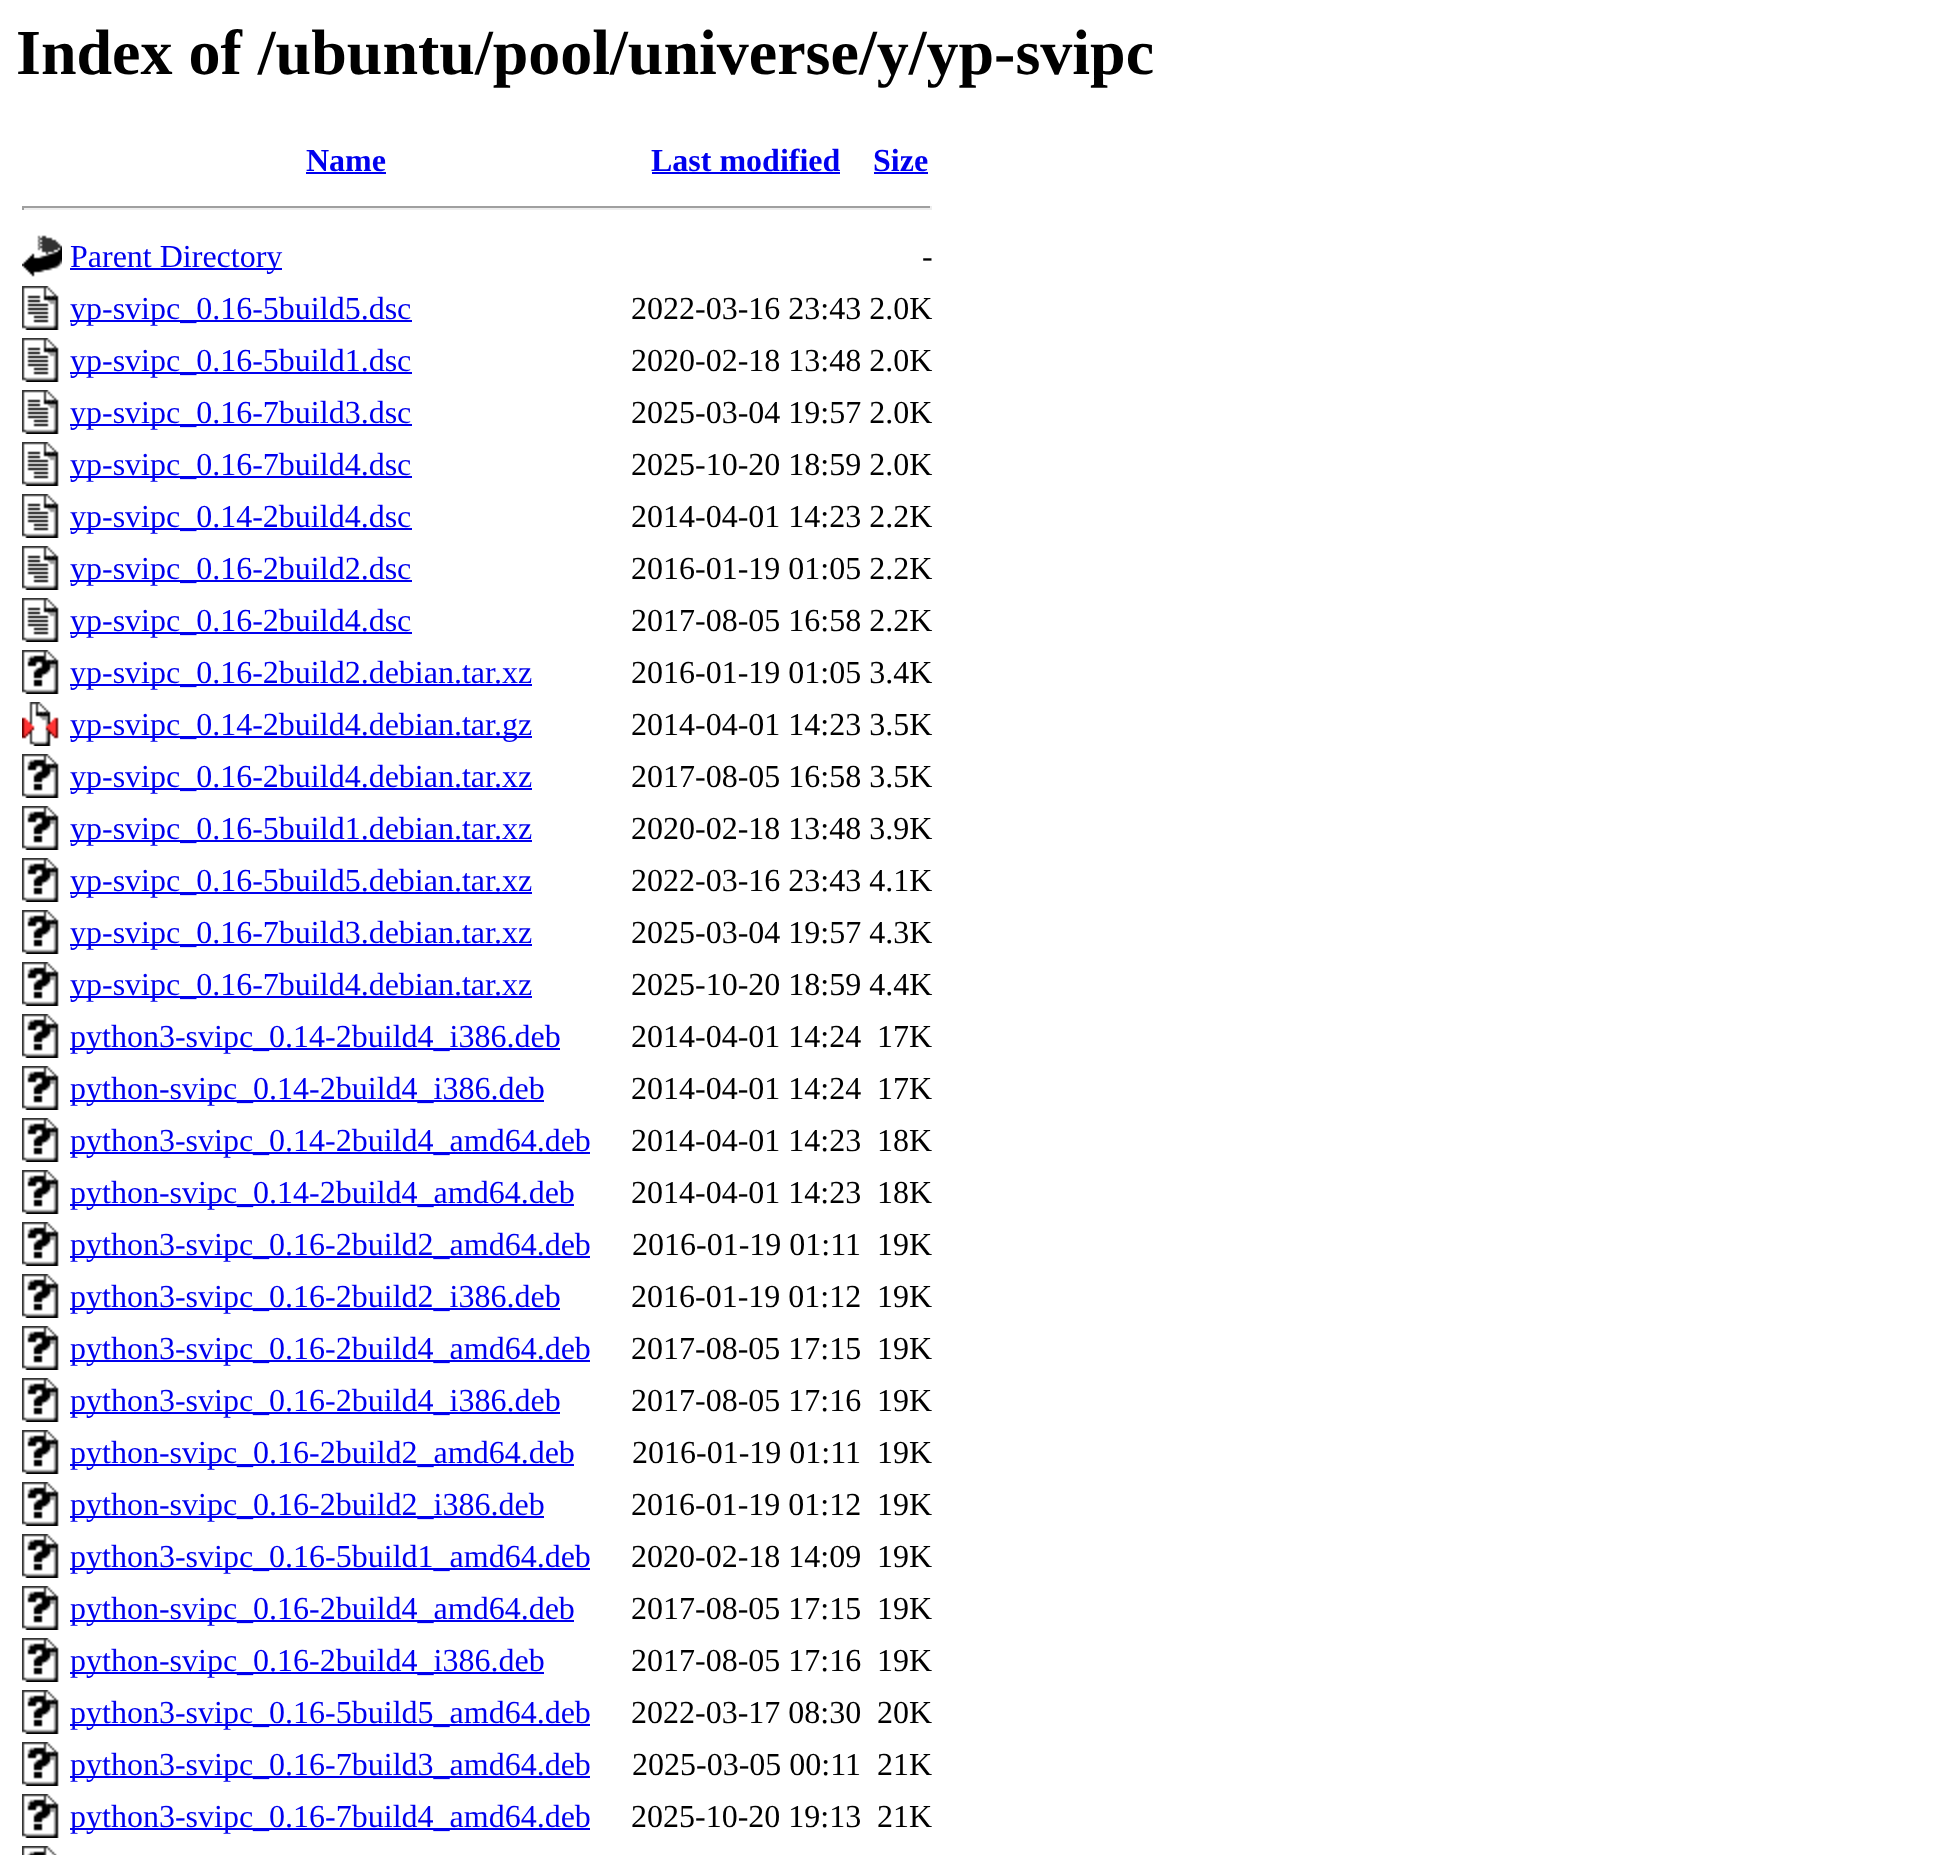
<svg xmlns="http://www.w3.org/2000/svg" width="1941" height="1855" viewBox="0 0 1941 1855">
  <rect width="100%" height="100%" fill="rgb(255,255,255)"/>
  <text x="16" y="74" font-family="Liberation Serif" font-size="64" font-weight="bold" fill="rgb(0,0,0)">Index of /ubuntu/pool/universe/y/yp-svipc</text>
  <text x="306" y="171" font-family="Liberation Serif" font-size="32" font-weight="bold" fill="rgb(0,0,238)">Name</text>
  <rect x="306" y="172" width="80" height="2" fill="rgb(0,0,238)"/>
  <text x="651" y="171" font-family="Liberation Serif" font-size="32" font-weight="bold" fill="rgb(0,0,238)">Last modified</text>
  <rect x="652" y="172" width="188" height="2" fill="rgb(0,0,238)"/>
  <text x="873" y="171" font-family="Liberation Serif" font-size="32" font-weight="bold" fill="rgb(0,0,238)">Size</text>
  <rect x="874" y="172" width="54" height="2" fill="rgb(0,0,238)"/>
  <rect x="22" y="206" width="910" height="2" fill="rgb(159,159,159)"/>
  <rect x="930" y="206" width="2" height="4" fill="rgb(238,238,238)"/>
  <rect x="22" y="208" width="910" height="2" fill="rgb(238,238,238)"/>
  <rect x="22" y="206" width="2" height="4" fill="rgb(159,159,159)"/>
  <image x="22" y="235" width="40" height="42" href="pic1.png"/>
  <rect x="70" y="268" width="212" height="2" fill="rgb(0,0,238)"/>
  <text x="70" y="267" font-family="Liberation Serif" font-size="32" fill="rgb(0,0,238)">Parent Directory</text>
  <text x="922" y="267" font-family="Liberation Serif" font-size="32" fill="rgb(0,0,0)">-</text>
  <image x="22" y="286" width="37" height="44" href="pic2.png"/>
  <rect x="70" y="320" width="342" height="2" fill="rgb(0,0,238)"/>
  <text x="70" y="319" font-family="Liberation Serif" font-size="32" fill="rgb(0,0,238)">yp-svipc_0.16-5build5.dsc</text>
  <text x="631" y="319" font-family="Liberation Serif" font-size="32" fill="rgb(0,0,0)">2022-03-16 23:43 2.0K</text>
  <image x="22" y="338" width="37" height="44" href="pic2.png"/>
  <rect x="70" y="372" width="342" height="2" fill="rgb(0,0,238)"/>
  <text x="70" y="371" font-family="Liberation Serif" font-size="32" fill="rgb(0,0,238)">yp-svipc_0.16-5build1.dsc</text>
  <text x="631" y="371" font-family="Liberation Serif" font-size="32" fill="rgb(0,0,0)">2020-02-18 13:48 2.0K</text>
  <image x="22" y="390" width="37" height="44" href="pic2.png"/>
  <rect x="70" y="424" width="342" height="2" fill="rgb(0,0,238)"/>
  <text x="70" y="423" font-family="Liberation Serif" font-size="32" fill="rgb(0,0,238)">yp-svipc_0.16-7build3.dsc</text>
  <text x="631" y="423" font-family="Liberation Serif" font-size="32" fill="rgb(0,0,0)">2025-03-04 19:57 2.0K</text>
  <image x="22" y="442" width="37" height="44" href="pic2.png"/>
  <rect x="70" y="476" width="342" height="2" fill="rgb(0,0,238)"/>
  <text x="70" y="475" font-family="Liberation Serif" font-size="32" fill="rgb(0,0,238)">yp-svipc_0.16-7build4.dsc</text>
  <text x="631" y="475" font-family="Liberation Serif" font-size="32" fill="rgb(0,0,0)">2025-10-20 18:59 2.0K</text>
  <image x="22" y="494" width="37" height="44" href="pic2.png"/>
  <rect x="70" y="528" width="342" height="2" fill="rgb(0,0,238)"/>
  <text x="70" y="527" font-family="Liberation Serif" font-size="32" fill="rgb(0,0,238)">yp-svipc_0.14-2build4.dsc</text>
  <text x="631" y="527" font-family="Liberation Serif" font-size="32" fill="rgb(0,0,0)">2014-04-01 14:23 2.2K</text>
  <image x="22" y="546" width="37" height="44" href="pic2.png"/>
  <rect x="70" y="580" width="342" height="2" fill="rgb(0,0,238)"/>
  <text x="70" y="579" font-family="Liberation Serif" font-size="32" fill="rgb(0,0,238)">yp-svipc_0.16-2build2.dsc</text>
  <text x="631" y="579" font-family="Liberation Serif" font-size="32" fill="rgb(0,0,0)">2016-01-19 01:05 2.2K</text>
  <image x="22" y="598" width="37" height="44" href="pic2.png"/>
  <rect x="70" y="632" width="342" height="2" fill="rgb(0,0,238)"/>
  <text x="70" y="631" font-family="Liberation Serif" font-size="32" fill="rgb(0,0,238)">yp-svipc_0.16-2build4.dsc</text>
  <text x="631" y="631" font-family="Liberation Serif" font-size="32" fill="rgb(0,0,0)">2017-08-05 16:58 2.2K</text>
  <image x="22" y="650" width="37" height="44" href="pic3.png"/>
  <rect x="70" y="684" width="462" height="2" fill="rgb(0,0,238)"/>
  <text x="70" y="683" font-family="Liberation Serif" font-size="32" fill="rgb(0,0,238)">yp-svipc_0.16-2build2.debian.tar.xz</text>
  <text x="631" y="683" font-family="Liberation Serif" font-size="32" fill="rgb(0,0,0)">2016-01-19 01:05 3.4K</text>
  <image x="22" y="702" width="37" height="44" href="pic4.png"/>
  <rect x="70" y="736" width="462" height="2" fill="rgb(0,0,238)"/>
  <text x="70" y="735" font-family="Liberation Serif" font-size="32" fill="rgb(0,0,238)">yp-svipc_0.14-2build4.debian.tar.gz</text>
  <text x="631" y="735" font-family="Liberation Serif" font-size="32" fill="rgb(0,0,0)">2014-04-01 14:23 3.5K</text>
  <image x="22" y="754" width="37" height="44" href="pic3.png"/>
  <rect x="70" y="788" width="462" height="2" fill="rgb(0,0,238)"/>
  <text x="70" y="787" font-family="Liberation Serif" font-size="32" fill="rgb(0,0,238)">yp-svipc_0.16-2build4.debian.tar.xz</text>
  <text x="631" y="787" font-family="Liberation Serif" font-size="32" fill="rgb(0,0,0)">2017-08-05 16:58 3.5K</text>
  <image x="22" y="806" width="37" height="44" href="pic3.png"/>
  <rect x="70" y="840" width="462" height="2" fill="rgb(0,0,238)"/>
  <text x="70" y="839" font-family="Liberation Serif" font-size="32" fill="rgb(0,0,238)">yp-svipc_0.16-5build1.debian.tar.xz</text>
  <text x="631" y="839" font-family="Liberation Serif" font-size="32" fill="rgb(0,0,0)">2020-02-18 13:48 3.9K</text>
  <image x="22" y="858" width="37" height="44" href="pic3.png"/>
  <rect x="70" y="892" width="462" height="2" fill="rgb(0,0,238)"/>
  <text x="70" y="891" font-family="Liberation Serif" font-size="32" fill="rgb(0,0,238)">yp-svipc_0.16-5build5.debian.tar.xz</text>
  <text x="631" y="891" font-family="Liberation Serif" font-size="32" fill="rgb(0,0,0)">2022-03-16 23:43 4.1K</text>
  <image x="22" y="910" width="37" height="44" href="pic3.png"/>
  <rect x="70" y="944" width="462" height="2" fill="rgb(0,0,238)"/>
  <text x="70" y="943" font-family="Liberation Serif" font-size="32" fill="rgb(0,0,238)">yp-svipc_0.16-7build3.debian.tar.xz</text>
  <text x="631" y="943" font-family="Liberation Serif" font-size="32" fill="rgb(0,0,0)">2025-03-04 19:57 4.3K</text>
  <image x="22" y="962" width="37" height="44" href="pic3.png"/>
  <rect x="70" y="996" width="462" height="2" fill="rgb(0,0,238)"/>
  <text x="70" y="995" font-family="Liberation Serif" font-size="32" fill="rgb(0,0,238)">yp-svipc_0.16-7build4.debian.tar.xz</text>
  <text x="631" y="995" font-family="Liberation Serif" font-size="32" fill="rgb(0,0,0)">2025-10-20 18:59 4.4K</text>
  <image x="22" y="1014" width="37" height="44" href="pic3.png"/>
  <rect x="70" y="1048" width="490" height="2" fill="rgb(0,0,238)"/>
  <text x="70" y="1047" font-family="Liberation Serif" font-size="32" fill="rgb(0,0,238)">python3-svipc_0.14-2build4_i386.deb</text>
  <g font-family="Liberation Serif" font-size="32" fill="rgb(0,0,0)">
    <text x="631" y="1047">2014-04-01 14:24</text>
    <text x="877" y="1047">17K</text>
  </g>
  <image x="22" y="1066" width="37" height="44" href="pic3.png"/>
  <rect x="70" y="1100" width="474" height="2" fill="rgb(0,0,238)"/>
  <text x="70" y="1099" font-family="Liberation Serif" font-size="32" fill="rgb(0,0,238)">python-svipc_0.14-2build4_i386.deb</text>
  <g font-family="Liberation Serif" font-size="32" fill="rgb(0,0,0)">
    <text x="631" y="1099">2014-04-01 14:24</text>
    <text x="877" y="1099">17K</text>
  </g>
  <image x="22" y="1118" width="37" height="44" href="pic3.png"/>
  <rect x="70" y="1152" width="520" height="2" fill="rgb(0,0,238)"/>
  <text x="70" y="1151" font-family="Liberation Serif" font-size="32" fill="rgb(0,0,238)">python3-svipc_0.14-2build4_amd64.deb</text>
  <g font-family="Liberation Serif" font-size="32" fill="rgb(0,0,0)">
    <text x="631" y="1151">2014-04-01 14:23</text>
    <text x="877" y="1151">18K</text>
  </g>
  <image x="22" y="1170" width="37" height="44" href="pic3.png"/>
  <rect x="70" y="1204" width="504" height="2" fill="rgb(0,0,238)"/>
  <text x="70" y="1203" font-family="Liberation Serif" font-size="32" fill="rgb(0,0,238)">python-svipc_0.14-2build4_amd64.deb</text>
  <g font-family="Liberation Serif" font-size="32" fill="rgb(0,0,0)">
    <text x="631" y="1203">2014-04-01 14:23</text>
    <text x="877" y="1203">18K</text>
  </g>
  <image x="22" y="1222" width="37" height="44" href="pic3.png"/>
  <rect x="70" y="1256" width="520" height="2" fill="rgb(0,0,238)"/>
  <text x="70" y="1255" font-family="Liberation Serif" font-size="32" fill="rgb(0,0,238)">python3-svipc_0.16-2build2_amd64.deb</text>
  <g font-family="Liberation Serif" font-size="32" fill="rgb(0,0,0)">
    <text x="632" y="1255">2016-01-19 01:11</text>
    <text x="877" y="1255">19K</text>
  </g>
  <image x="22" y="1274" width="37" height="44" href="pic3.png"/>
  <rect x="70" y="1308" width="490" height="2" fill="rgb(0,0,238)"/>
  <text x="70" y="1307" font-family="Liberation Serif" font-size="32" fill="rgb(0,0,238)">python3-svipc_0.16-2build2_i386.deb</text>
  <g font-family="Liberation Serif" font-size="32" fill="rgb(0,0,0)">
    <text x="631" y="1307">2016-01-19 01:12</text>
    <text x="877" y="1307">19K</text>
  </g>
  <image x="22" y="1326" width="37" height="44" href="pic3.png"/>
  <rect x="70" y="1360" width="520" height="2" fill="rgb(0,0,238)"/>
  <text x="70" y="1359" font-family="Liberation Serif" font-size="32" fill="rgb(0,0,238)">python3-svipc_0.16-2build4_amd64.deb</text>
  <g font-family="Liberation Serif" font-size="32" fill="rgb(0,0,0)">
    <text x="631" y="1359">2017-08-05 17:15</text>
    <text x="877" y="1359">19K</text>
  </g>
  <image x="22" y="1378" width="37" height="44" href="pic3.png"/>
  <rect x="70" y="1412" width="490" height="2" fill="rgb(0,0,238)"/>
  <text x="70" y="1411" font-family="Liberation Serif" font-size="32" fill="rgb(0,0,238)">python3-svipc_0.16-2build4_i386.deb</text>
  <g font-family="Liberation Serif" font-size="32" fill="rgb(0,0,0)">
    <text x="631" y="1411">2017-08-05 17:16</text>
    <text x="877" y="1411">19K</text>
  </g>
  <image x="22" y="1430" width="37" height="44" href="pic3.png"/>
  <rect x="70" y="1464" width="504" height="2" fill="rgb(0,0,238)"/>
  <text x="70" y="1463" font-family="Liberation Serif" font-size="32" fill="rgb(0,0,238)">python-svipc_0.16-2build2_amd64.deb</text>
  <g font-family="Liberation Serif" font-size="32" fill="rgb(0,0,0)">
    <text x="632" y="1463">2016-01-19 01:11</text>
    <text x="877" y="1463">19K</text>
  </g>
  <image x="22" y="1482" width="37" height="44" href="pic3.png"/>
  <rect x="70" y="1516" width="474" height="2" fill="rgb(0,0,238)"/>
  <text x="70" y="1515" font-family="Liberation Serif" font-size="32" fill="rgb(0,0,238)">python-svipc_0.16-2build2_i386.deb</text>
  <g font-family="Liberation Serif" font-size="32" fill="rgb(0,0,0)">
    <text x="631" y="1515">2016-01-19 01:12</text>
    <text x="877" y="1515">19K</text>
  </g>
  <image x="22" y="1534" width="37" height="44" href="pic3.png"/>
  <rect x="70" y="1568" width="520" height="2" fill="rgb(0,0,238)"/>
  <text x="70" y="1567" font-family="Liberation Serif" font-size="32" fill="rgb(0,0,238)">python3-svipc_0.16-5build1_amd64.deb</text>
  <g font-family="Liberation Serif" font-size="32" fill="rgb(0,0,0)">
    <text x="631" y="1567">2020-02-18 14:09</text>
    <text x="877" y="1567">19K</text>
  </g>
  <image x="22" y="1586" width="37" height="44" href="pic3.png"/>
  <rect x="70" y="1620" width="504" height="2" fill="rgb(0,0,238)"/>
  <text x="70" y="1619" font-family="Liberation Serif" font-size="32" fill="rgb(0,0,238)">python-svipc_0.16-2build4_amd64.deb</text>
  <g font-family="Liberation Serif" font-size="32" fill="rgb(0,0,0)">
    <text x="631" y="1619">2017-08-05 17:15</text>
    <text x="877" y="1619">19K</text>
  </g>
  <image x="22" y="1638" width="37" height="44" href="pic3.png"/>
  <rect x="70" y="1672" width="474" height="2" fill="rgb(0,0,238)"/>
  <text x="70" y="1671" font-family="Liberation Serif" font-size="32" fill="rgb(0,0,238)">python-svipc_0.16-2build4_i386.deb</text>
  <g font-family="Liberation Serif" font-size="32" fill="rgb(0,0,0)">
    <text x="631" y="1671">2017-08-05 17:16</text>
    <text x="877" y="1671">19K</text>
  </g>
  <image x="22" y="1690" width="37" height="44" href="pic3.png"/>
  <rect x="70" y="1724" width="520" height="2" fill="rgb(0,0,238)"/>
  <text x="70" y="1723" font-family="Liberation Serif" font-size="32" fill="rgb(0,0,238)">python3-svipc_0.16-5build5_amd64.deb</text>
  <g font-family="Liberation Serif" font-size="32" fill="rgb(0,0,0)">
    <text x="631" y="1723">2022-03-17 08:30</text>
    <text x="877" y="1723">20K</text>
  </g>
  <image x="22" y="1742" width="37" height="44" href="pic3.png"/>
  <rect x="70" y="1776" width="520" height="2" fill="rgb(0,0,238)"/>
  <text x="70" y="1775" font-family="Liberation Serif" font-size="32" fill="rgb(0,0,238)">python3-svipc_0.16-7build3_amd64.deb</text>
  <g font-family="Liberation Serif" font-size="32" fill="rgb(0,0,0)">
    <text x="632" y="1775">2025-03-05 00:11</text>
    <text x="877" y="1775">21K</text>
  </g>
  <image x="22" y="1794" width="37" height="44" href="pic3.png"/>
  <rect x="70" y="1828" width="520" height="2" fill="rgb(0,0,238)"/>
  <text x="70" y="1827" font-family="Liberation Serif" font-size="32" fill="rgb(0,0,238)">python3-svipc_0.16-7build4_amd64.deb</text>
  <g font-family="Liberation Serif" font-size="32" fill="rgb(0,0,0)">
    <text x="631" y="1827">2025-10-20 19:13</text>
    <text x="877" y="1827">21K</text>
  </g>
  <image x="22" y="1846" width="35" height="9" href="pic5.png"/>
</svg>
